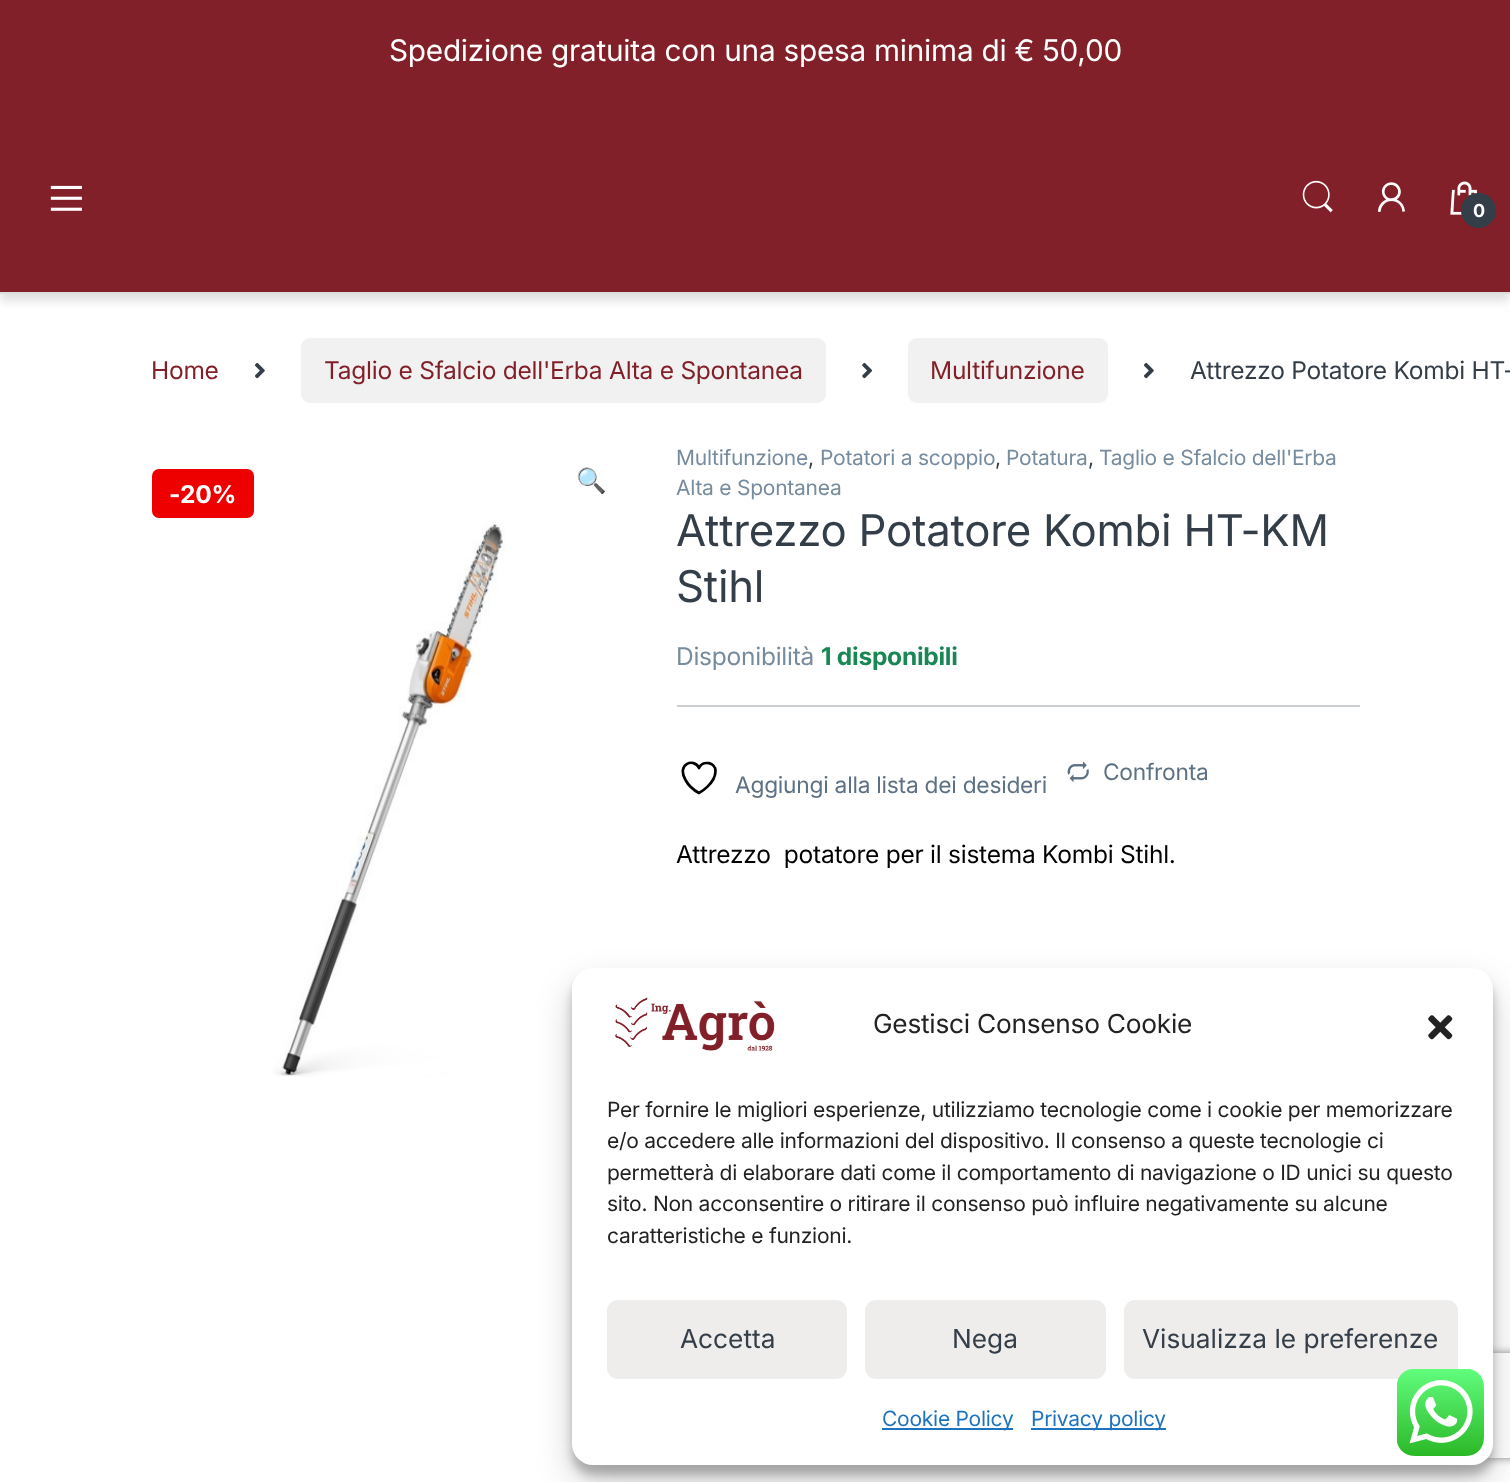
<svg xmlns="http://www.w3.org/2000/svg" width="1510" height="1482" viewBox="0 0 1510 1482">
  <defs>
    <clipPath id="clip1"><path d="M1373 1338H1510V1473H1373ZM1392 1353H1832C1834 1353 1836 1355 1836 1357V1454C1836 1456 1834 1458 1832 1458H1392C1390 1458 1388 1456 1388 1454V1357C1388 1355 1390 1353 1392 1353Z" clip-rule="evenodd"/></clipPath>
  </defs>
  <rect width="100%" height="100%" fill="rgb(255,255,255)"/>
  <rect x="0" y="110" width="1510" height="191" fill="rgba(0,0,0,0.12)" filter="blur(5px)"/>
  <rect x="0" y="0" width="1510" height="292" fill="rgb(130,32,41)"/>
  <text x="389" y="61" font-family="Inter" font-size="29.75" letter-spacing="-0.25" fill="rgb(255,255,255)">Spedizione gratuita con una spesa minima di € 50,00</text>
  <rect x="0" y="292" width="1510" height="2" fill="rgb(221,221,221)"/>
  <image x="50" y="185" width="32" height="26" href="pic1.png"/>
  <image x="1302" y="180" width="31" height="33" href="pic2.png"/>
  <image x="1377" y="182" width="28" height="30" href="pic3.png"/>
  <image x="1450" y="181" width="28" height="34" href="pic4.png"/>
  <circle cx="1478.5" cy="210.5" r="17.5" fill="rgb(51,62,72)"/>
  <text x="1473" y="217" font-family="Inter" font-size="18" font-weight="bold" letter-spacing="-0.25" fill="rgb(255,255,255)">0</text>
  <text x="151" y="379" font-family="Inter" font-size="24.5" letter-spacing="-0.25" fill="rgb(130,32,41)">Home</text>
  <image x="255" y="362" width="10" height="17" href="pic5.png"/>
  <rect x="301" y="338" width="525" height="65" rx="9" fill="rgb(241,241,241)"/>
  <text x="324" y="379" font-family="Inter" font-size="24.5" letter-spacing="-0.25" fill="rgb(130,32,41)">Taglio e Sfalcio dell'Erba Alta e Spontanea</text>
  <image x="862" y="362" width="10" height="17" href="pic6.png"/>
  <rect x="908" y="338" width="200" height="65" rx="9" fill="rgb(241,241,241)"/>
  <text x="930" y="379" font-family="Inter" font-size="24.5" letter-spacing="-0.25" fill="rgb(130,32,41)">Multifunzione</text>
  <image x="1144" y="362" width="10" height="17" href="pic5.png"/>
  <text x="1190" y="379" font-family="Inter" font-size="24.5" letter-spacing="-0.25" fill="rgb(51,62,72)">Attrezzo Potatore Kombi HT-</text>
  <rect x="152" y="469" width="102" height="49" rx="7" fill="rgb(238,0,0)"/>
  <g font-family="Inter" font-size="24.5" font-weight="bold" letter-spacing="-0.25" fill="rgb(255,255,255)">
    <text x="169" y="503">-</text>
    <text x="180" y="503">20%</text>
  </g>
  <text x="576" y="489" font-family="Noto Color Emoji" font-size="24.5" letter-spacing="-0.25" fill="rgb(130,32,41)">🔍</text>
  <image x="273" y="523" width="232" height="554" href="pic7.png"/>
  <text x="676" y="465" font-family="Inter" font-size="21" letter-spacing="-0.25" fill="rgb(118,139,158)">Multifunzione</text>
  <text x="808" y="465" font-family="Inter" font-size="21" letter-spacing="-0.25" fill="rgb(51,62,72)">,</text>
  <text x="820" y="465" font-family="Inter" font-size="21" letter-spacing="-0.25" fill="rgb(118,139,158)">Potatori a scoppio</text>
  <text x="995" y="465" font-family="Inter" font-size="21" letter-spacing="-0.25" fill="rgb(51,62,72)">,</text>
  <text x="1006" y="465" font-family="Inter" font-size="21" letter-spacing="-0.25" fill="rgb(118,139,158)">Potatura</text>
  <text x="1088" y="465" font-family="Inter" font-size="21" letter-spacing="-0.25" fill="rgb(51,62,72)">,</text>
  <g font-family="Inter" font-size="21" letter-spacing="-0.25" fill="rgb(118,139,158)">
    <text x="1099" y="465">Taglio e Sfalcio dell'Erba</text>
    <text x="676" y="495">Alta e Spontanea</text>
  </g>
  <g font-family="Inter" font-size="43.75" letter-spacing="-0.25" fill="rgb(51,62,72)">
    <text>
      <tspan x="676" y="546">Attrezzo Potatore Kombi HT-KM</tspan>
      <tspan x="676" y="602">Stihl</tspan>
    </text>
  </g>
  <text x="676" y="665" font-family="Inter" font-size="24.5" letter-spacing="-0.25" fill="rgb(118,139,158)">Disponibilità</text>
  <text x="821" y="665" font-family="Inter" font-size="24.5" font-weight="bold" letter-spacing="-0.25" fill="rgb(25,135,84)">1 disponibili</text>
  <rect x="677" y="705" width="683" height="2" fill="rgb(204,207,209)"/>
  <image x="1067" y="761" width="22" height="22" href="pic8.png"/>
  <text x="1103" y="780" font-family="Inter" font-size="22.75" letter-spacing="-0.25" fill="rgb(93,113,132)">Confronta</text>
  <path d="M715.5 771C715.5 762 702.5 760 699 768C694.5 757.5 676 763.5 685.5 780C688.5 785.5 693.5 790 699 793C699 793 715.5 784 715.5 771Z" fill="none" stroke="rgb(0,0,0)" stroke-width="2.7" stroke-linecap="round" stroke-linejoin="round"/>
  <text x="735" y="793" font-family="Inter" font-size="22.75" letter-spacing="-0.25" fill="rgb(93,113,132)">Aggiungi alla lista dei desideri</text>
  <text x="676" y="863" font-family="Inter" font-size="24.5" letter-spacing="-0.25" fill="rgb(0,0,0)" xml:space="preserve">Attrezzo  potatore per il sistema Kombi Stihl.</text>
  <rect x="572" y="978" width="921" height="497" rx="21" fill="rgba(0,0,0,0.23)" filter="blur(5px)"/>
  <rect x="572" y="985" width="921" height="497" rx="21" fill="rgba(0,0,0,0.19)" filter="blur(17.5px)"/>
  <g clip-path="url(#clip1)">
    <rect x="1388" y="1353" width="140" height="105" rx="4" fill="rgb(128,128,128)" filter="blur(4.5px)"/>
  </g>
  <rect x="572" y="968" width="921" height="497" rx="21" fill="rgb(255,255,255)"/>
  <image x="615" y="997" width="160" height="54" href="pic9.png"/>
  <text x="873" y="1033" font-family="Inter" font-size="26.25" letter-spacing="-0.25" fill="rgb(34,34,34)">Gestisci Consenso Cookie</text>
  <image x="1428" y="1015" width="25" height="25" href="pic10.png"/>
  <g font-family="Inter" font-size="21" letter-spacing="-0.25" fill="rgb(34,34,34)">
    <text>
      <tspan x="607" y="1117">Per fornire le migliori esperienze, utilizziamo tecnologie come i cookie per memorizzare</tspan>
      <tspan x="607" y="1148">e/o accedere alle informazioni del dispositivo. Il consenso a queste tecnologie ci</tspan>
      <tspan x="607" y="1180">permetterà di elaborare dati come il comportamento di navigazione o ID unici su questo</tspan>
      <tspan x="607" y="1211">sito. Non acconsentire o ritirare il consenso può influire negativamente su alcune</tspan>
      <tspan x="607" y="1243">caratteristiche e funzioni.</tspan>
    </text>
  </g>
  <rect x="608" y="1301" width="238" height="77" rx="10" fill="rgb(239,236,236)" stroke="rgb(239,236,236)" stroke-width="2"/>
  <text x="680" y="1348" font-family="Inter" font-size="26.25" fill="rgb(51,62,72)">Accetta</text>
  <rect x="866" y="1301" width="239" height="77" rx="10" fill="rgb(239,236,236)" stroke="rgb(239,236,236)" stroke-width="2"/>
  <text x="952" y="1348" font-family="Inter" font-size="26.25" fill="rgb(51,62,72)">Nega</text>
  <rect x="1125" y="1301" width="332" height="77" rx="10" fill="rgb(239,236,236)" stroke="rgb(239,236,236)" stroke-width="2"/>
  <text x="1142" y="1348" font-family="Inter" font-size="26.25" fill="rgb(51,62,72)">Visualizza le preferenze</text>
  <rect x="882" y="1428" width="131" height="2" fill="rgb(30,115,190)"/>
  <text x="882" y="1426" font-family="Inter" font-size="21" letter-spacing="-0.25" fill="rgb(30,115,190)">Cookie Policy</text>
  <rect x="1031" y="1428" width="135" height="2" fill="rgb(30,115,190)"/>
  <text x="1031" y="1426" font-family="Inter" font-size="21" letter-spacing="-0.25" fill="rgb(30,115,190)">Privacy policy</text>
  <image x="1397" y="1369" width="87" height="87" href="pic11.png"/>
</svg>
